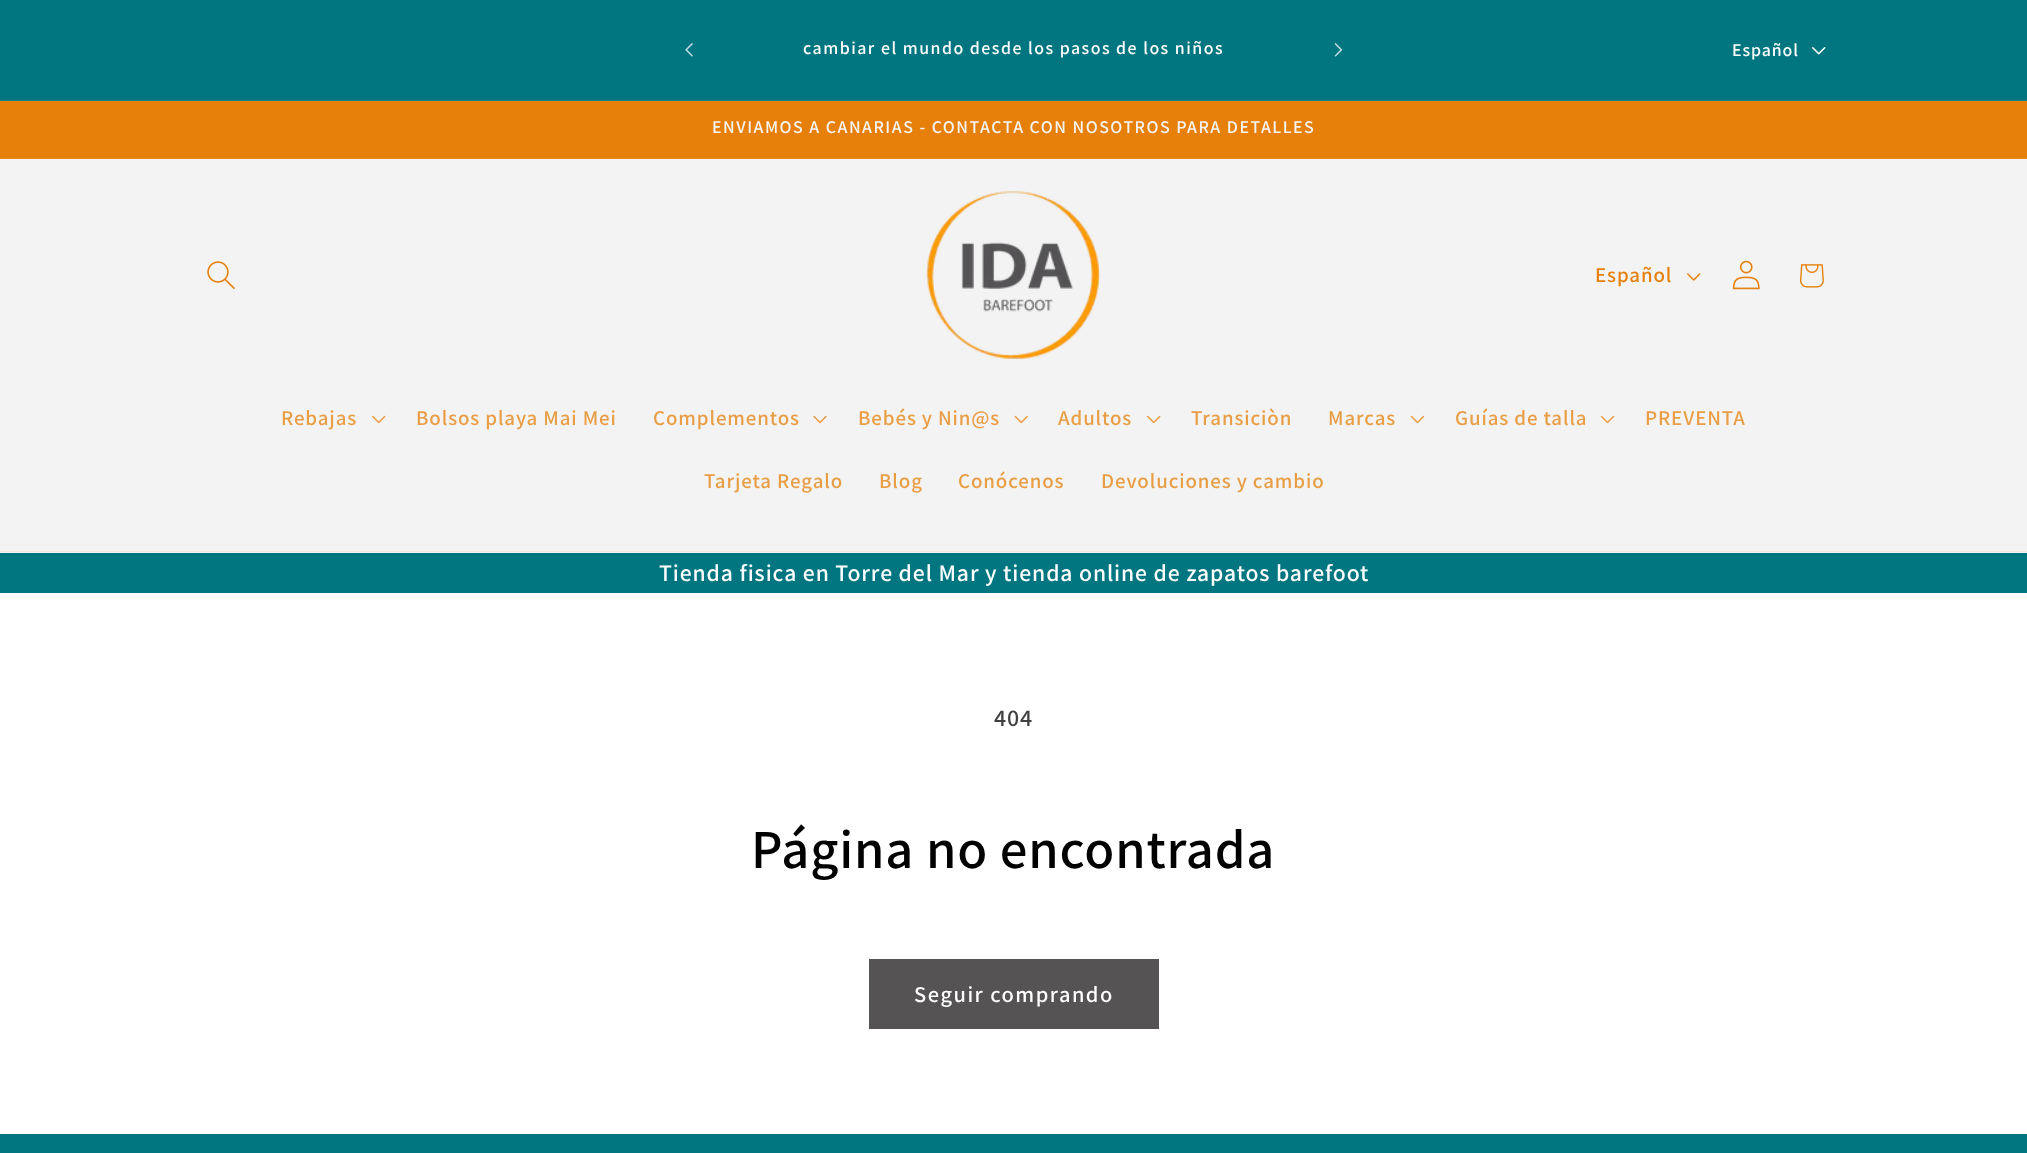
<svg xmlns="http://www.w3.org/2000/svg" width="2027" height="1153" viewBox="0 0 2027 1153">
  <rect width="100%" height="100%" fill="rgb(255,255,255)"/>
  <rect x="0" y="0" width="2027" height="100" fill="rgb(1,118,128)"/>
  <rect x="0" y="100" width="2027" height="1" fill="rgb(21,129,138)"/>
  <image x="685" y="43" width="8" height="14" href="pic1.png"/>
  <text x="803" y="54" font-family="Assistant" font-size="17.9" font-weight="600" letter-spacing="1.5" fill="rgb(255,255,255)">cambiar el mundo desde los pasos de los niños</text>
  <image x="1334" y="43" width="9" height="14" href="pic2.png"/>
  <text x="1732" y="56" font-family="Assistant" font-size="17.9" font-weight="600" letter-spacing="0.9" fill="rgb(255,255,255)">Español</text>
  <image x="1812" y="47" width="14" height="8" href="pic3.png"/>
  <rect x="0" y="101" width="2027" height="57" fill="rgb(230,128,10)"/>
  <rect x="0" y="158" width="2027" height="1" fill="rgb(231,137,29)"/>
  <text x="712" y="133" font-family="Assistant" font-size="17.9" font-weight="600" letter-spacing="1.5" fill="rgb(245,245,245)">ENVIAMOS A CANARIAS - CONTACTA CON NOSOTROS PARA DETALLES</text>
  <rect x="0" y="159" width="2027" height="394" fill="rgb(243,243,243)"/>
  <rect x="0" y="551" width="2027" height="1" fill="rgb(242,234,224)"/>
  <image x="207" y="261" width="28" height="28" href="pic4.png"/>
  <image x="926" y="191" width="174" height="168" href="pic5.png"/>
  <text x="1595" y="282" font-family="Assistant" font-size="21" font-weight="600" letter-spacing="0.9" fill="rgb(230,128,10)">Español</text>
  <image x="1687" y="273" width="14" height="8" href="pic6.png"/>
  <image x="1732" y="260" width="28" height="30" href="pic7.png"/>
  <image x="1800" y="264" width="24" height="24" href="pic8.png"/>
  <text x="281" y="425" font-family="Assistant" font-size="21" font-weight="600" letter-spacing="0.9" fill="rgb(233,157,68)">Rebajas</text>
  <image x="372" y="415" width="14" height="9" href="pic9.png"/>
  <g font-family="Assistant" font-size="21" font-weight="600" letter-spacing="0.9" fill="rgb(233,157,68)">
    <text x="416" y="425">Bolsos playa Mai Mei</text>
    <text x="653" y="425">Complementos</text>
  </g>
  <image x="813" y="415" width="14" height="9" href="pic10.png"/>
  <text x="858" y="425" font-family="Assistant" font-size="21" font-weight="600" letter-spacing="0.9" fill="rgb(233,157,68)">Bebés y Nin@s</text>
  <image x="1014" y="415" width="14" height="9" href="pic11.png"/>
  <text x="1058" y="425" font-family="Assistant" font-size="21" font-weight="600" letter-spacing="0.9" fill="rgb(233,157,68)">Adultos</text>
  <image x="1147" y="415" width="14" height="9" href="pic9.png"/>
  <g font-family="Assistant" font-size="21" font-weight="600" letter-spacing="0.9" fill="rgb(233,157,68)">
    <text x="1191" y="425">Transiciòn</text>
    <text x="1328" y="425">Marcas</text>
  </g>
  <image x="1410" y="415" width="15" height="9" href="pic12.png"/>
  <text x="1455" y="425" font-family="Assistant" font-size="21" font-weight="600" letter-spacing="0.9" fill="rgb(233,157,68)">Guías de talla</text>
  <image x="1600" y="415" width="15" height="9" href="pic12.png"/>
  <g font-family="Assistant" font-size="21" font-weight="600" letter-spacing="0.9" fill="rgb(233,157,68)">
    <text x="1645" y="425">PREVENTA</text>
    <text x="704" y="488">Tarjeta Regalo</text>
    <text x="879" y="488">Blog</text>
    <text x="958" y="488">Conócenos</text>
    <text x="1101" y="488">Devoluciones y cambio</text>
  </g>
  <rect x="0" y="553" width="2027" height="40" fill="rgb(1,118,128)"/>
  <text x="659" y="581" font-family="Assistant" font-size="23.75" font-weight="600" letter-spacing="0.9" fill="rgb(255,255,255)">Tienda fisica en Torre del Mar y tienda online de zapatos barefoot</text>
  <text x="994" y="726" font-family="Assistant" font-size="24" font-weight="600" letter-spacing="0.9" fill="rgb(64,64,64)">404</text>
  <text x="751" y="868" font-family="Assistant" font-size="55" font-weight="600" letter-spacing="0.8" fill="rgb(0,0,0)">Página no encontrada</text>
  <rect x="869" y="959" width="290" height="70" fill="rgb(85,83,83)"/>
  <text x="914" y="1002" font-family="Assistant" font-size="22.5" font-weight="600" letter-spacing="1.5" fill="rgb(255,255,255)">Seguir comprando</text>
  <rect x="0" y="1134" width="2027" height="19" fill="rgb(1,118,128)"/>
</svg>
